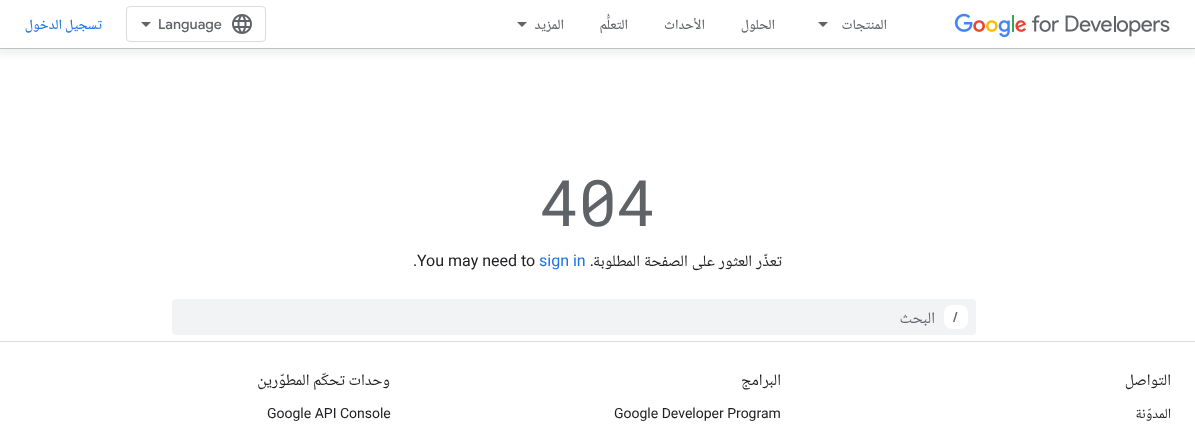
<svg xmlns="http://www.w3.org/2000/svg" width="1195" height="439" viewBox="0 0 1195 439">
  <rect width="100%" height="100%" fill="rgb(255,255,255)"/>
  <rect x="-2" y="49" width="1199" height="4" fill="rgba(60,64,67,0.15)" filter="blur(3px)"/>
  <rect x="0" y="45" width="1195" height="3" fill="rgb(255,255,255)"/>
  <rect x="0" y="48" width="1195" height="1" fill="rgb(189,193,198)"/>
  <image x="954" y="13" width="216" height="25" href="pic1.png"/>
  <text x="887" y="29" font-family="Noto Naskh Arabic" font-size="14" font-weight="500" direction="rtl" fill="rgb(95,99,104)">المنتجات</text>
  <path d="M818 22H828L823 27Z" fill="rgb(95,99,104)"/>
  <g font-family="Noto Naskh Arabic" font-size="14" font-weight="500" direction="rtl" fill="rgb(95,99,104)">
    <text x="775" y="29">الحلول</text>
    <text x="705" y="29">الأحداث</text>
    <text x="628" y="29">التعلُّم</text>
    <text x="564" y="29">المزيد</text>
  </g>
  <path d="M517 22H527L522 27Z" fill="rgb(95,99,104)"/>
  <rect x="126.5" y="6.5" width="139" height="35" rx="3.5" fill="none" stroke="rgb(218,220,224)"/>
  <image x="232" y="14" width="20" height="20" href="pic2.png"/>
  <text x="158" y="29" font-family="Google Sans" font-size="14" font-weight="500" fill="rgb(95,99,104)">Language</text>
  <path d="M146 27L141 22H151Z" fill="rgb(95,99,104)"/>
  <text x="102" y="29" font-family="Noto Naskh Arabic" font-size="14" font-weight="500" direction="rtl" fill="rgb(26,115,232)">تسجيل الدخول</text>
  <text x="540" y="226" font-family="Roboto Mono" font-size="64" fill="rgb(95,99,104)">404</text>
  <text x="782" y="266" word-spacing="0.5" font-family="Noto Naskh Arabic" font-size="16" direction="rtl" fill="rgb(32,33,36)">تعذّر العثور على الصفحة المطلوبة</text>
  <text x="594" y="266" font-family="Roboto" font-size="16" direction="rtl" fill="rgb(32,33,36)">.</text>
  <text x="539" y="266" font-family="Roboto" font-size="16" fill="rgb(26,115,232)">sign in</text>
  <g font-family="Roboto" font-size="16" fill="rgb(32,33,36)">
    <text x="417" y="266">You may need to</text>
    <text x="413" y="266">.</text>
  </g>
  <rect x="172" y="299" width="804" height="36" rx="4" fill="rgb(241,243,244)"/>
  <rect x="944" y="305" width="24" height="24" rx="8" fill="rgb(255,255,255)"/>
  <text x="953" y="322" font-family="Google Sans" font-size="14" font-weight="500" fill="rgb(95,99,104)">/</text>
  <text x="935" y="323" font-family="Noto Naskh Arabic" font-size="16" direction="rtl" fill="rgb(95,99,104)">البحث</text>
  <rect x="0" y="341" width="1195" height="1" fill="rgb(218,220,224)"/>
  <text x="1171" y="385" font-family="Noto Naskh Arabic" font-size="16" direction="rtl" fill="rgb(32,33,36)">التواصل</text>
  <text x="1171" y="418" font-family="Noto Naskh Arabic" font-size="14" direction="rtl" fill="rgb(32,33,36)">المدوّنة</text>
  <text x="781" y="385" font-family="Noto Naskh Arabic" font-size="16" direction="rtl" fill="rgb(32,33,36)">البرامج</text>
  <text x="614" y="418" font-family="Roboto" font-size="14" fill="rgb(32,33,36)">Google Developer Program</text>
  <text x="390" y="385" font-family="Noto Naskh Arabic" font-size="16" direction="rtl" fill="rgb(32,33,36)">وحدات تحكّم المطوّرين</text>
  <text x="267" y="418" font-family="Roboto" font-size="14" fill="rgb(32,33,36)">Google API Console</text>
</svg>
